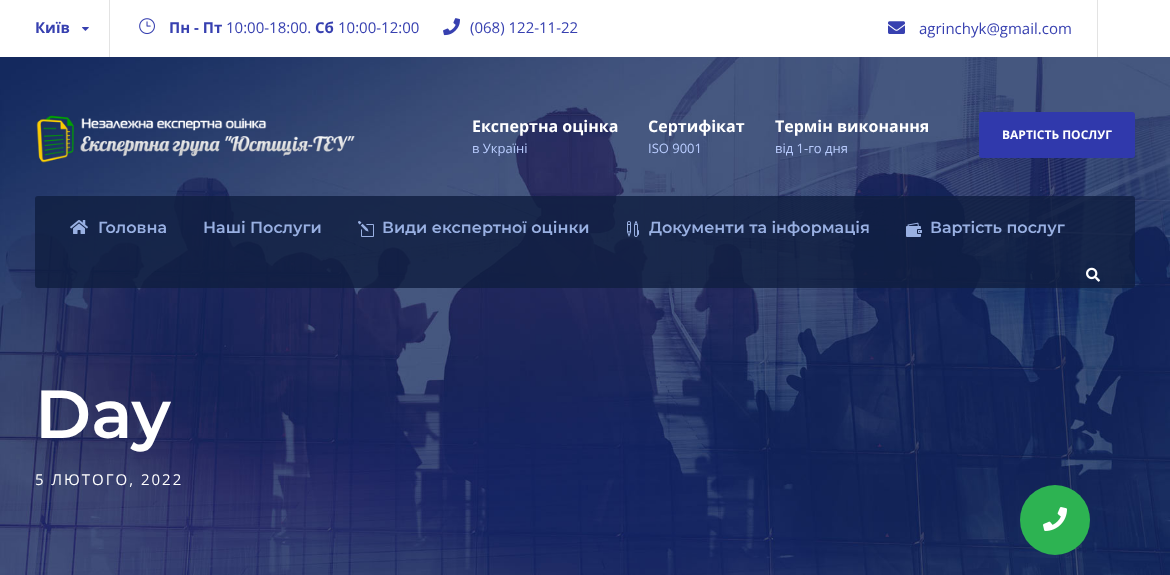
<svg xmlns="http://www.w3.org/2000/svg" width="1170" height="575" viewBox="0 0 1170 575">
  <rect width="100%" height="100%" fill="rgb(255,255,255)"/>
  <text x="35" y="33" font-family="Open Sans" font-size="15" font-weight="bold" fill="rgb(55,64,176)">Київ</text>
  <image x="82" y="27" width="7" height="4" href="pic1.png"/>
  <rect x="109" y="0" width="1" height="57" fill="rgb(227,227,227)"/>
  <image x="139" y="18" width="16" height="17" href="pic2.png"/>
  <text x="169" y="33" font-family="Open Sans" font-size="15" font-weight="bold" fill="rgb(55,64,176)">Пн - Пт</text>
  <text x="226" y="33" font-family="Open Sans" font-size="15" fill="rgb(55,64,176)">10:00-18:00.</text>
  <text x="315" y="33" font-family="Open Sans" font-size="15" font-weight="bold" fill="rgb(55,64,176)">Сб</text>
  <text x="338" y="33" font-family="Open Sans" font-size="15" fill="rgb(55,64,176)">10:00-12:00</text>
  <image x="443" y="18" width="17" height="18" href="pic3.png"/>
  <text x="470" y="33" font-family="Open Sans" font-size="15" fill="rgb(55,64,176)">(068) 122-11-22</text>
  <image x="888" y="21" width="17" height="13" href="pic4.png"/>
  <text x="919" y="34" font-family="Open Sans" font-size="15" fill="rgb(55,64,176)">agrinchyk@gmail.com</text>
  <rect x="1097" y="0" width="1" height="57" fill="rgb(227,227,227)"/>
  <image x="0" y="57" width="1170" height="518" href="pic11.png"/>
  <image x="36" y="115" width="319" height="48" href="pic5.png"/>
  <text x="472" y="132" font-family="Open Sans" font-size="16" font-weight="bold" fill="rgb(255,255,255)">Експертна оцінка</text>
  <text x="472" y="153" font-family="Open Sans" font-size="13" fill="rgb(186,205,255)">в Україні</text>
  <text x="648" y="132" font-family="Open Sans" font-size="16" font-weight="bold" fill="rgb(255,255,255)">Сертифікат</text>
  <text x="648" y="153" font-family="Open Sans" font-size="13" fill="rgb(186,205,255)">ISO 9001</text>
  <text x="775" y="132" font-family="Open Sans" font-size="16" font-weight="bold" fill="rgb(255,255,255)">Термін виконання</text>
  <text x="775" y="153" font-family="Open Sans" font-size="13" fill="rgb(186,205,255)">від 1-го дня</text>
  <rect x="979" y="112" width="156" height="46" rx="3" fill="rgb(48,57,172)"/>
  <text x="1002" y="139" font-family="Open Sans" font-size="12" font-weight="bold" fill="rgb(255,255,255)">ВАРТІСТЬ ПОСЛУГ</text>
  <rect x="35" y="196" width="1100" height="92" rx="3" fill="rgba(16,31,65,0.82)"/>
  <image x="70" y="220" width="18" height="14" href="pic6.png"/>
  <g font-family="Montserrat" font-size="16" font-weight="600" fill="rgb(153,176,226)">
    <text x="98" y="233">Головна</text>
    <text x="203" y="233">Наші Послуги</text>
  </g>
  <image x="358" y="221" width="16" height="16" href="pic7.png"/>
  <text x="382" y="233" font-family="Montserrat" font-size="16" font-weight="600" fill="rgb(153,176,226)">Види експертної оцінки</text>
  <image x="627" y="221" width="12" height="16" href="pic8.png"/>
  <text x="649" y="233" font-family="Montserrat" font-size="16" font-weight="600" fill="rgb(153,176,226)">Документи та інформація</text>
  <image x="906" y="222" width="16" height="15" href="pic9.png"/>
  <text x="930" y="233" font-family="Montserrat" font-size="16" font-weight="600" fill="rgb(153,176,226)">Вартість послуг</text>
  <image x="1086" y="267" width="14" height="15" href="pic10.png"/>
  <text x="35" y="438" font-family="Montserrat" font-size="68" font-weight="600" fill="rgb(255,255,255)">Day</text>
  <text x="35" y="485" font-family="Open Sans" font-size="15" letter-spacing="2" fill="rgb(255,255,255)">5 ЛЮТОГО, 2022</text>
  <circle cx="1055" cy="520" r="35" fill="rgb(45,179,82)"/>
  <image x="1043" y="507" width="24" height="24" href="pic12.png"/>
</svg>
